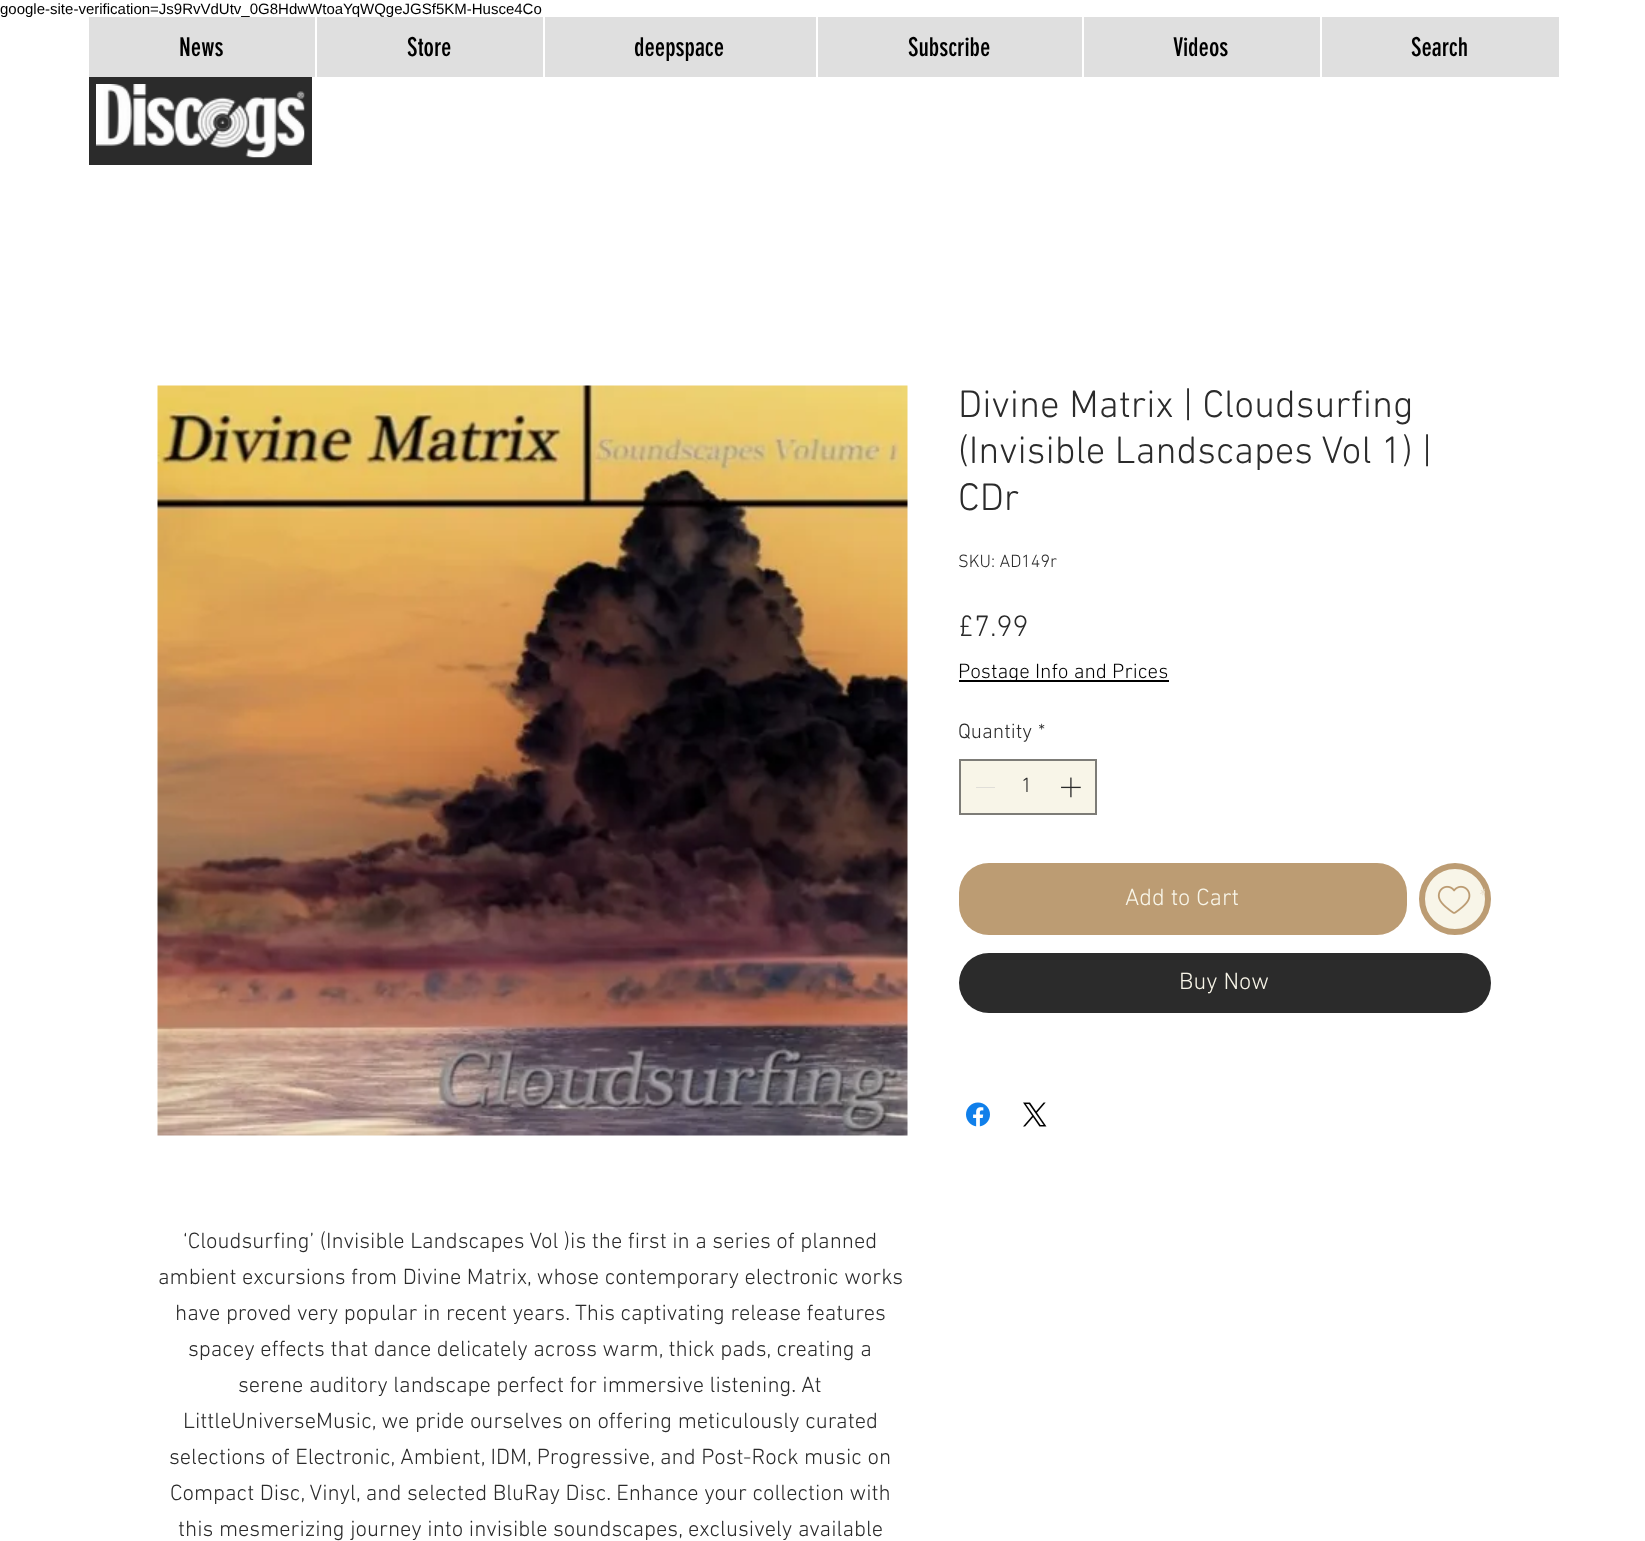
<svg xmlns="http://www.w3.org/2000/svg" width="1645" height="1541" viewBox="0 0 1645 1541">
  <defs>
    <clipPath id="clip1"><rect x="1425" y="875" width="60" height="48"/></clipPath>
  </defs>
  <rect width="100%" height="100%" fill="rgb(255,255,255)"/>
  <text x="0" y="14" font-family="Liberation Sans" font-size="15" fill="rgb(0,0,0)">google-site-verification=Js9RvVdUtv_0G8HdwWtoaYqWQgeJGSf5KM-Husce4Co</text>
  <rect x="89" y="17" width="1470" height="60" fill="rgba(219,219,219,0.9)"/>
  <text x="179" y="56" font-family="'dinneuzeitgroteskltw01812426'" font-size="25.5" fill="rgb(0,0,0)">News</text>
  <rect x="315" y="17" width="2" height="60" fill="rgb(255,255,255)"/>
  <text x="407" y="56" font-family="'dinneuzeitgroteskltw01812426'" font-size="25.5" fill="rgb(0,0,0)">Store</text>
  <rect x="543" y="17" width="2" height="60" fill="rgb(255,255,255)"/>
  <text x="634" y="56" font-family="'dinneuzeitgroteskltw01812426'" font-size="25.5" fill="rgb(0,0,0)">deepspace</text>
  <rect x="816" y="17" width="2" height="60" fill="rgb(255,255,255)"/>
  <text x="908" y="56" font-family="'dinneuzeitgroteskltw01812426'" font-size="25.5" fill="rgb(0,0,0)">Subscribe</text>
  <rect x="1082" y="17" width="2" height="60" fill="rgb(255,255,255)"/>
  <text x="1173" y="56" font-family="'dinneuzeitgroteskltw01812426'" font-size="25.5" fill="rgb(0,0,0)">Videos</text>
  <rect x="1320" y="17" width="2" height="60" fill="rgb(255,255,255)"/>
  <text x="1411" y="56" font-family="'dinneuzeitgroteskltw01812426'" font-size="25.5" fill="rgb(0,0,0)">Search</text>
  <rect x="89" y="77" width="223" height="88" fill="rgb(43,43,43)"/>
  <image x="96" y="84" width="209" height="74" href="pic1.png"/>
  <g font-family="'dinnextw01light'" font-size="39" font-weight="300" fill="rgb(43,43,43)">
    <text>
      <tspan x="958" y="417">Divine Matrix | Cloudsurfing</tspan>
      <tspan x="958" y="463">(Invisible Landscapes Vol 1) |</tspan>
      <tspan x="958" y="510">CDr</tspan>
    </text>
  </g>
  <text x="958" y="567" font-family="'dinnextw01light'" font-size="18" font-weight="300" fill="rgb(43,43,43)">SKU: AD149r</text>
  <text x="958" y="636" font-family="'dinnextw01light'" font-size="30" font-weight="300" fill="rgb(43,43,43)">£7.99</text>
  <rect x="959" y="680" width="210" height="2" fill="rgb(0,0,0)"/>
  <text x="958" y="678" font-family="'dinnextw01light'" font-size="21" font-weight="300" fill="rgb(0,0,0)">Postage Info and Prices</text>
  <g font-family="'dinnextw01light'" font-size="21" font-weight="300" fill="rgb(43,43,43)">
    <text x="958" y="738">Quantity</text>
    <text x="1038" y="738">*</text>
  </g>
  <rect x="960" y="760" width="136" height="54" fill="rgb(248,245,232)" stroke="rgb(125,124,119)" stroke-width="2"/>
  <rect x="976" y="787" width="19" height="1" fill="rgb(224,222,216)"/>
  <text x="1021" y="792" font-family="'dinnextw01light'" font-size="21" font-weight="300" fill="rgb(43,43,43)">1</text>
  <image x="1061" y="777" width="20" height="21" href="pic2.png"/>
  <rect x="959" y="863" width="448" height="72" rx="30" fill="rgb(188,156,115)"/>
  <text x="1125" y="905" font-family="'dinnextw01light'" font-size="24" font-weight="300" fill="rgb(248,245,232)">Add to Cart</text>
  <circle cx="1455" cy="899" r="33" fill="rgb(248,245,232)" stroke="rgb(188,156,115)" stroke-width="6"/>
  <image x="1437" y="885" width="34" height="29" href="pic3.png"/>
  <g clip-path="url(#clip1)">
    <text x="1476" y="905" font-family="'dinnextw01light'" font-size="24" font-weight="300" font-style="italic" fill="rgb(233,222,202)">*</text>
  </g>
  <rect x="959" y="953" width="532" height="60" rx="30" fill="rgb(43,43,43)"/>
  <text x="1179" y="989" font-family="'dinnextw01light'" font-size="24" font-weight="300" fill="rgb(248,245,232)">Buy Now</text>
  <image x="966" y="1102" width="24" height="25" href="pic4.png"/>
  <image x="1023" y="1102" width="24" height="25" href="pic5.png"/>
  <image x="157" y="385" width="751" height="751" href="pic6.png"/>
  <g font-family="'dinnextw01light'" font-size="22.5" font-weight="300" fill="rgb(43,43,43)">
    <text x="183" y="1248">‘Cloudsurfing’ (Invisible Landscapes Vol )is the first in a series of planned</text>
    <text x="158" y="1284">ambient excursions from Divine Matrix, whose contemporary electronic works</text>
    <text x="175" y="1320">have proved very popular in recent years. This captivating release features</text>
    <text x="188" y="1356">spacey effects that dance delicately across warm, thick pads, creating a</text>
    <text x="238" y="1392">serene auditory landscape perfect for immersive listening. At</text>
    <text x="183" y="1428">LittleUniverseMusic, we pride ourselves on offering meticulously curated</text>
    <text x="169" y="1464">selections of Electronic, Ambient, IDM, Progressive, and Post-Rock music on</text>
    <text x="170" y="1500">Compact Disc, Vinyl, and selected BluRay Disc. Enhance your collection with</text>
    <text x="178" y="1536">this mesmerizing journey into invisible soundscapes, exclusively available</text>
  </g>
</svg>
